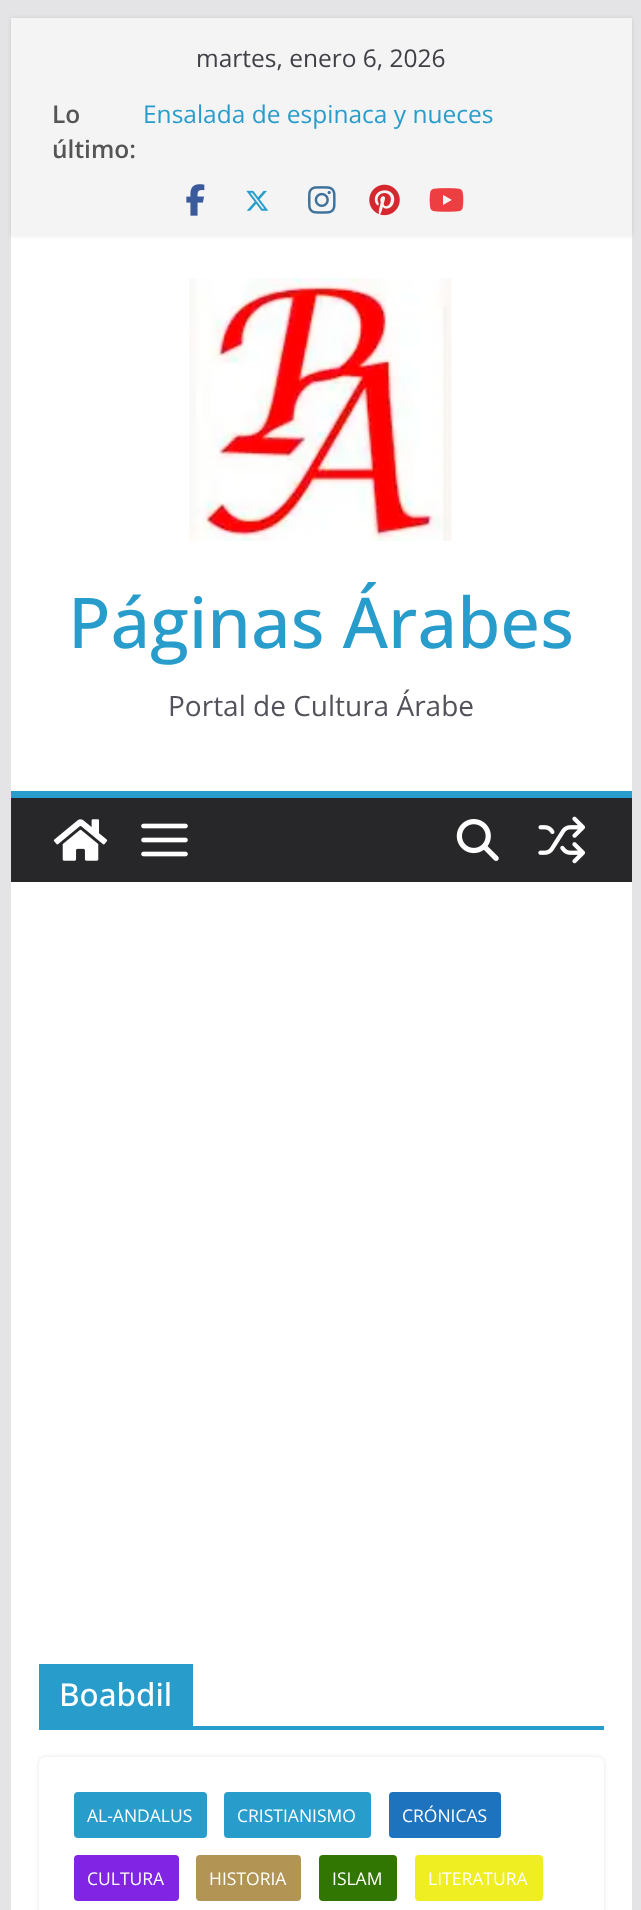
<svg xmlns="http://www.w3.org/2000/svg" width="641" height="1910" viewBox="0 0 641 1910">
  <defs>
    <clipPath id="clip1"><path d="M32 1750H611V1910H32ZM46 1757H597C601 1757 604 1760 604 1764V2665C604 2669 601 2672 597 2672H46C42 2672 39 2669 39 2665V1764C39 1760 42 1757 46 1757Z" clip-rule="evenodd"/></clipPath>
  </defs>
  <rect width="100%" height="100%" fill="rgb(228,228,231)"/>
  <rect x="11" y="236" width="621" height="1674" fill="rgb(255,255,255)"/>
  <rect x="11" y="18" width="621" height="218" fill="rgba(0,0,0,0.1)" filter="blur(2px)"/>
  <rect x="11" y="18" width="621" height="218" fill="rgb(244,244,245)"/>
  <text x="196" y="67" font-family="Open Sans" font-size="24.5" fill="rgb(63,63,70)">martes, enero 6, 2026</text>
  <g font-family="Open Sans" font-size="24.5" font-weight="600" fill="rgb(85,85,85)">
    <text>
      <tspan x="52" y="123">Lo</tspan>
      <tspan x="52" y="158">último:</tspan>
    </text>
  </g>
  <text x="143" y="123" font-family="Open Sans" font-size="24.5" fill="rgb(40,157,204)">Ensalada de espinaca y nueces</text>
  <image x="186" y="184" width="19" height="32" href="pic1.png"/>
  <image x="246" y="190" width="23" height="21" href="pic2.png"/>
  <image x="308" y="186" width="28" height="28" href="pic3.png"/>
  <image x="369" y="184" width="31" height="32" href="pic4.png"/>
  <image x="429" y="188" width="35" height="24" href="pic5.png"/>
  <image x="189" y="278" width="263" height="263" href="pic6.png"/>
  <text x="68" y="648" font-family="Open Sans" font-size="70" font-weight="500" fill="rgb(40,157,204)">Páginas Árabes</text>
  <text x="168" y="716" font-family="Open Sans" font-size="28" fill="rgb(82,82,91)">Portal de Cultura Árabe</text>
  <rect x="11" y="798" width="621" height="84" fill="rgb(39,39,42)"/>
  <rect x="11" y="791" width="621" height="7" fill="rgb(40,157,204)"/>
  <image x="53" y="819" width="55" height="42" href="pic7.png"/>
  <image x="141" y="823" width="47" height="34" href="pic8.png"/>
  <image x="456" y="819" width="43" height="42" href="pic9.png"/>
  <image x="538" y="816" width="48" height="48" href="pic10.png"/>
  <rect x="39" y="1726" width="565" height="4" fill="rgb(40,157,204)"/>
  <rect x="39" y="1664" width="154" height="62" fill="rgb(40,157,204)"/>
  <text x="59" y="1706" font-family="Open Sans" font-size="31.5" font-weight="500" fill="rgb(255,255,255)">Boabdil</text>
  <g clip-path="url(#clip1)">
    <rect x="39" y="1757" width="565" height="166" rx="7" fill="rgb(228,228,231)" filter="blur(2px)"/>
  </g>
  <rect x="74" y="1792" width="133" height="46" rx="4" fill="rgb(40,157,204)"/>
  <text x="87" y="1822" font-family="Open Sans" font-size="17.5" fill="rgb(255,255,255)">AL-ANDALUS</text>
  <rect x="224" y="1792" width="147" height="46" rx="4" fill="rgb(40,157,204)"/>
  <text x="237" y="1822" font-family="Open Sans" font-size="17.5" fill="rgb(255,255,255)">CRISTIANISMO</text>
  <rect x="389" y="1792" width="112" height="46" rx="4" fill="rgb(30,115,190)"/>
  <text x="402" y="1822" font-family="Open Sans" font-size="17.5" fill="rgb(255,255,255)">CRÓNICAS</text>
  <rect x="74" y="1855" width="105" height="46" rx="4" fill="rgb(130,36,227)"/>
  <text x="87" y="1885" font-family="Open Sans" font-size="17.5" fill="rgb(255,255,255)">CULTURA</text>
  <rect x="196" y="1855" width="105" height="46" rx="4" fill="rgb(178,149,85)"/>
  <text x="209" y="1885" font-family="Open Sans" font-size="17.5" fill="rgb(255,255,255)">HISTORIA</text>
  <rect x="319" y="1855" width="78" height="46" rx="4" fill="rgb(49,117,3)"/>
  <text x="332" y="1885" font-family="Open Sans" font-size="17.5" fill="rgb(255,255,255)">ISLAM</text>
  <rect x="415" y="1855" width="128" height="46" rx="4" fill="rgb(238,238,34)"/>
  <text x="428" y="1885" font-family="Open Sans" font-size="17.5" fill="rgb(255,255,255)">LITERATURA</text>
</svg>
